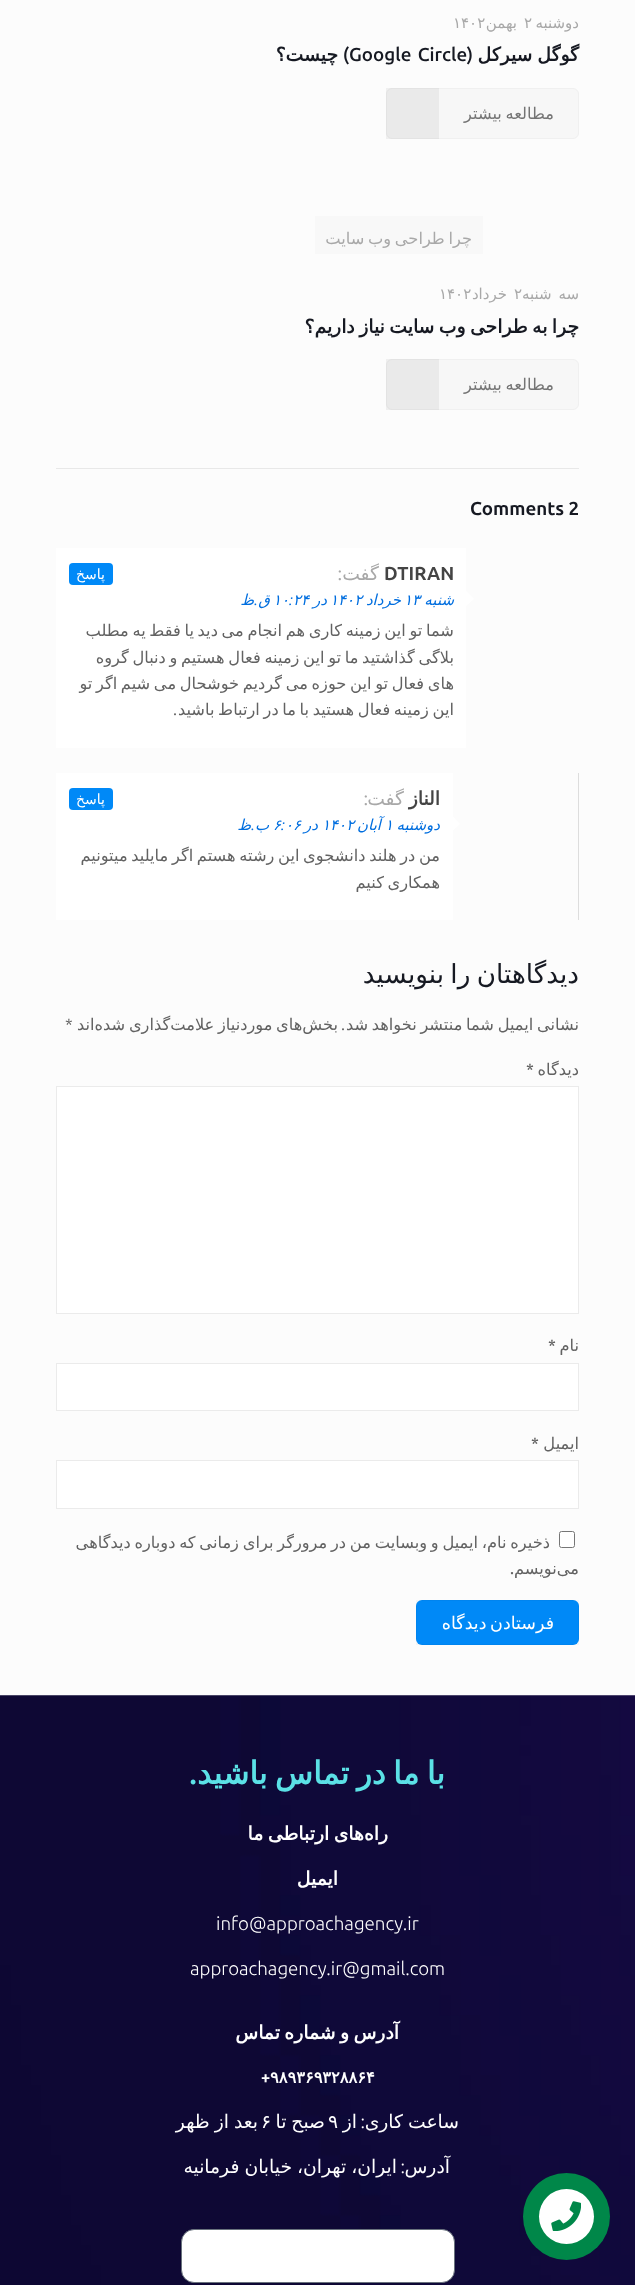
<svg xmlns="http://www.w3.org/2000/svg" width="635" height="2285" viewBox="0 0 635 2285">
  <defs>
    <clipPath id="clip1"><rect x="56" y="958" width="523" height="687"/></clipPath>
  </defs>
  <rect width="100%" height="100%" fill="rgb(252,252,252)"/>
  <text x="579" y="28" font-family="DejaVu Sans" font-size="15" direction="rtl" fill="rgb(168,168,168)">دوشنبه</text>
  <text x="524" y="28" font-family="DejaVu Sans" font-size="15" fill="rgb(168,168,168)">۲</text>
  <text x="517" y="28" font-family="DejaVu Sans" font-size="15" direction="rtl" fill="rgb(168,168,168)">بهمن‌</text>
  <text x="453" y="28" font-family="DejaVu Sans" font-size="15" fill="rgb(168,168,168)">۱۴۰۲</text>
  <text x="579" y="61" word-spacing="-1" font-family="DejaVu Sans" font-size="18.75" font-weight="bold" direction="rtl" fill="rgb(22,25,34)">گوگل سیرکل</text>
  <text x="473" y="61" font-family="Ubuntu" font-size="18.75" font-weight="600" direction="rtl" fill="rgb(22,25,34)">(</text>
  <text x="349" y="61" word-spacing="2" font-family="Ubuntu" font-size="18.75" font-weight="600" fill="rgb(22,25,34)">Google Circle</text>
  <text x="349" y="61" font-family="Ubuntu" font-size="18.75" font-weight="600" direction="rtl" fill="rgb(22,25,34)">)</text>
  <text x="338" y="61" font-family="DejaVu Sans" font-size="18.75" font-weight="bold" direction="rtl" fill="rgb(22,25,34)">چیست؟</text>
  <rect x="386.5" y="88.5" width="192" height="50" rx="5.5" fill="rgb(247,247,247)" stroke="rgb(240,240,240)"/>
  <text x="554" y="119" word-spacing="-1.5" font-family="DejaVu Sans" font-size="16.25" direction="rtl" fill="rgb(116,116,116)">مطالعه بیشتر</text>
  <rect x="386" y="88" width="53" height="51" fill="rgba(0,0,0,0.05)"/>
  <rect x="315" y="216" width="168" height="38" fill="rgb(248,248,248)"/>
  <text x="472" y="244" word-spacing="-1.5" font-family="DejaVu Sans" font-size="16.25" direction="rtl" fill="rgb(168,168,168)">چرا طراحی وب سایت</text>
  <text x="579" y="299" word-spacing="2" font-family="DejaVu Sans" font-size="15" direction="rtl" fill="rgb(168,168,168)">سه شنبه</text>
  <text x="514" y="299" font-family="DejaVu Sans" font-size="15" fill="rgb(168,168,168)">۲</text>
  <text x="507" y="299" font-family="DejaVu Sans" font-size="15" direction="rtl" fill="rgb(168,168,168)">خرداد‌</text>
  <text x="439" y="299" font-family="DejaVu Sans" font-size="15" fill="rgb(168,168,168)">۱۴۰۲</text>
  <text x="579" y="333" word-spacing="-1.5" font-family="DejaVu Sans" font-size="18.75" font-weight="bold" direction="rtl" fill="rgb(22,25,34)">چرا به طراحی وب سایت نیاز داریم؟</text>
  <rect x="386.5" y="359.5" width="192" height="50" rx="5.5" fill="rgb(247,247,247)" stroke="rgb(240,240,240)"/>
  <text x="554" y="390" word-spacing="-1.5" font-family="DejaVu Sans" font-size="16.25" direction="rtl" fill="rgb(116,116,116)">مطالعه بیشتر</text>
  <rect x="386" y="359" width="53" height="51" fill="rgba(0,0,0,0.05)"/>
  <rect x="56" y="468" width="523" height="1" fill="rgb(232,232,232)"/>
  <text x="470" y="515" font-family="Ubuntu" font-size="18.75" font-weight="bold" fill="rgb(22,25,34)">Comments 2</text>
  <rect x="56" y="548" width="410" height="200" fill="rgb(255,255,255)"/>
  <text x="384" y="580" font-family="Ubuntu" font-size="18.75" font-weight="bold" fill="rgb(68,68,68)">DTIRAN</text>
  <text x="379" y="580" font-family="DejaVu Sans" font-size="18.75" direction="rtl" fill="rgb(168,168,168)">گفت</text>
  <text x="342" y="580" font-family="Ubuntu" font-size="18.75" direction="rtl" fill="rgb(168,168,168)">:</text>
  <rect x="69" y="563" width="44" height="22" rx="4" fill="rgb(0,137,247)"/>
  <text x="105" y="579" font-family="DejaVu Sans" font-size="14" direction="rtl" fill="rgb(255,255,255)">پاسخ</text>
  <path d="M466 606V591L474 599Z" fill="rgb(255,255,255)"/>
  <text x="454" y="605" font-family="DejaVu Sans" font-size="15" font-style="italic" direction="rtl" fill="rgb(0,110,223)">شنبه</text>
  <text x="404" y="605" font-family="DejaVu Sans" font-size="15" font-style="italic" fill="rgb(0,110,223)">۱۳</text>
  <text x="401" y="605" font-family="DejaVu Sans" font-size="15" font-style="italic" direction="rtl" fill="rgb(0,110,223)">خرداد‌</text>
  <text x="330" y="605" font-family="DejaVu Sans" font-size="15" font-style="italic" fill="rgb(0,110,223)">۱۴۰۲</text>
  <text x="327" y="605" font-family="DejaVu Sans" font-size="15" font-style="italic" direction="rtl" fill="rgb(0,110,223)">در</text>
  <text x="293" y="605" font-family="DejaVu Sans" font-size="15" font-style="italic" fill="rgb(0,110,223)">۲۴</text>
  <text x="289" y="605" font-family="Ubuntu" font-size="15" font-style="italic" fill="rgb(0,110,223)">:</text>
  <text x="273" y="605" font-family="DejaVu Sans" font-size="15" font-style="italic" fill="rgb(0,110,223)">۱۰</text>
  <g font-family="DejaVu Sans" font-size="15" font-style="italic" direction="rtl" fill="rgb(0,110,223)">
    <text x="270" y="605">ق</text>
    <text x="254" y="605">ظ</text>
  </g>
  <text x="258" y="605" font-family="Ubuntu" font-size="15" font-style="italic" direction="rtl" fill="rgb(0,110,223)">.</text>
  <g font-family="DejaVu Sans" font-size="16.25" direction="rtl" fill="rgb(98,98,98)">
    <text>
      <tspan x="454" y="636" word-spacing="-1.5">شما تو این زمینه کاری هم انجام می دید یا فقط یه مطلب</tspan>
      <tspan x="454" y="663" word-spacing="-1.5">بلاگی گذاشتید ما تو این زمینه فعال هستیم و دنبال گروه</tspan>
      <tspan x="454" y="689" word-spacing="-1.5">های فعال تو این حوزه می گردیم خوشحال می شیم اگر تو</tspan>
      <tspan x="454" y="715" word-spacing="-1.5">این زمینه فعال هستید با ما در ارتباط باشید</tspan>
    </text>
  </g>
  <text x="177" y="715" font-family="Ubuntu" font-size="16.25" direction="rtl" fill="rgb(98,98,98)">.</text>
  <rect x="578" y="773" width="1" height="147" fill="rgb(221,221,221)"/>
  <rect x="56" y="773" width="397" height="147" fill="rgb(255,255,255)"/>
  <text x="440" y="805" font-family="DejaVu Sans" font-size="18.75" font-weight="bold" direction="rtl" fill="rgb(68,68,68)">الناز</text>
  <text x="404" y="805" font-family="DejaVu Sans" font-size="18.75" direction="rtl" fill="rgb(168,168,168)">گفت</text>
  <text x="368" y="805" font-family="Ubuntu" font-size="18.75" direction="rtl" fill="rgb(168,168,168)">:</text>
  <rect x="69" y="788" width="44" height="22" rx="4" fill="rgb(0,137,247)"/>
  <text x="105" y="804" font-family="DejaVu Sans" font-size="14" direction="rtl" fill="rgb(255,255,255)">پاسخ</text>
  <path d="M452.5 831V816L460 824Z" fill="rgb(255,255,255)"/>
  <text x="440" y="830" font-family="DejaVu Sans" font-size="15" font-style="italic" direction="rtl" fill="rgb(0,110,223)">دوشنبه</text>
  <text x="385" y="830" font-family="DejaVu Sans" font-size="15" font-style="italic" fill="rgb(0,110,223)">۱</text>
  <text x="381" y="830" font-family="DejaVu Sans" font-size="15" font-style="italic" direction="rtl" fill="rgb(0,110,223)">آبان‌</text>
  <text x="322" y="830" font-family="DejaVu Sans" font-size="15" font-style="italic" fill="rgb(0,110,223)">۱۴۰۲</text>
  <text x="318" y="830" font-family="DejaVu Sans" font-size="15" font-style="italic" direction="rtl" fill="rgb(0,110,223)">در</text>
  <g font-family="DejaVu Sans" font-size="15" font-style="italic" fill="rgb(0,110,223)">
    <text x="285" y="830">۰۶</text>
    <text x="273" y="830">۶</text>
  </g>
  <text x="281" y="830" font-family="Ubuntu" font-size="15" font-style="italic" fill="rgb(0,110,223)">:</text>
  <g font-family="DejaVu Sans" font-size="15" font-style="italic" direction="rtl" fill="rgb(0,110,223)">
    <text x="269" y="830">ب</text>
    <text x="251" y="830">ظ</text>
  </g>
  <text x="255" y="830" font-family="Ubuntu" font-size="15" font-style="italic" direction="rtl" fill="rgb(0,110,223)">.</text>
  <g font-family="DejaVu Sans" font-size="16.25" direction="rtl" fill="rgb(98,98,98)">
    <text>
      <tspan x="440" y="861" word-spacing="-1.5">من در هلند دانشجوی این رشته هستم اگر مایلید میتونیم</tspan>
      <tspan x="440" y="888" word-spacing="-1.5">همکاری کنیم</tspan>
    </text>
  </g>
  <g clip-path="url(#clip1)">
    <text x="579" y="983" word-spacing="-2" font-family="DejaVu Sans" font-size="26.25" direction="rtl" fill="rgb(22,25,34)">دیدگاهتان را بنویسید</text>
    <text x="579" y="1030" word-spacing="-1.5" font-family="DejaVu Sans" font-size="16.25" direction="rtl" fill="rgb(98,98,98)">نشانی ایمیل شما منتشر نخواهد شد</text>
  </g>
  <text x="338" y="1030" word-spacing="-1.5" font-family="DejaVu Sans" font-size="16.25" direction="rtl" fill="rgb(98,98,98)">بخش‌های موردنیاز علامت‌گذاری شده‌اند</text>
  <text x="65" y="1030" font-family="Ubuntu" font-size="16.25" fill="rgb(98,98,98)">*</text>
  <text x="345" y="1030" font-family="Ubuntu" font-size="16.25" direction="rtl" fill="rgb(98,98,98)">.</text>
  <text x="579" y="1075" font-family="DejaVu Sans" font-size="16.25" direction="rtl" fill="rgb(98,98,98)">دیدگاه</text>
  <text x="526" y="1075" font-family="Ubuntu" font-size="16.25" font-weight="500" fill="rgb(98,98,98)">*</text>
  <rect x="56.5" y="1086.5" width="522" height="227" fill="rgb(255,255,255)" stroke="rgb(235,235,235)"/>
  <text x="579" y="1351" font-family="DejaVu Sans" font-size="16.25" direction="rtl" fill="rgb(98,98,98)">نام</text>
  <text x="548" y="1351" font-family="Ubuntu" font-size="16.25" font-weight="500" fill="rgb(98,98,98)">*</text>
  <rect x="56.5" y="1363.5" width="522" height="47" fill="rgb(255,255,255)" stroke="rgb(235,235,235)"/>
  <text x="579" y="1449" font-family="DejaVu Sans" font-size="16.25" direction="rtl" fill="rgb(98,98,98)">ایمیل</text>
  <text x="531" y="1449" font-family="Ubuntu" font-size="16.25" font-weight="500" fill="rgb(98,98,98)">*</text>
  <rect x="56.5" y="1460.5" width="522" height="48" fill="rgb(255,255,255)" stroke="rgb(235,235,235)"/>
  <rect x="559.5" y="1531.5" width="15" height="16" rx="2" fill="rgb(255,255,255)" stroke="rgb(118,118,118)"/>
  <g font-family="DejaVu Sans" font-size="16.25" direction="rtl" fill="rgb(98,98,98)">
    <text x="550" y="1548" word-spacing="-1.4">ذخیره نام، ایمیل و وبسایت من در مرورگر برای زمانی که دوباره دیدگاهی</text>
    <text x="579" y="1574">می‌نویسم</text>
  </g>
  <text x="514" y="1574" font-family="Ubuntu" font-size="16.25" font-weight="500" direction="rtl" fill="rgb(98,98,98)">.</text>
  <rect x="416" y="1600" width="163" height="45" rx="6" fill="rgb(0,137,247)"/>
  <rect x="416.5" y="1600.5" width="162" height="44" fill="none" stroke="rgba(0,0,0,0.03)"/>
  <text x="554" y="1629" word-spacing="-2" font-family="DejaVu Sans" font-size="17.5" direction="rtl" fill="rgb(255,255,255)">فرستادن دیدگاه</text>
  <image x="0" y="1695" width="635" height="590" href="pic1.png"/>
  <text x="445" y="1784" word-spacing="-2.5" font-family="DejaVu Sans" font-size="31.25" font-weight="bold" direction="rtl" fill="rgb(91,225,230)">با ما در تماس باشید</text>
  <text x="197" y="1784" font-family="Ubuntu" font-size="31.25" font-weight="600" direction="rtl" fill="rgb(91,225,230)">.</text>
  <g font-family="DejaVu Sans" font-size="18.75" font-weight="bold" direction="rtl" fill="rgb(255,255,255)">
    <text x="388" y="1840" word-spacing="-1.5">راه‌های ارتباطی ما</text>
    <text x="338" y="1885">ایمیل</text>
  </g>
  <g font-family="Ubuntu" font-size="18.75" font-weight="300" fill="rgb(255,255,255)">
    <text x="216" y="1930">info@approachagency.ir</text>
    <text x="190" y="1975">approachagency.ir@gmail.com</text>
  </g>
  <text x="399" y="2039" word-spacing="-1.5" font-family="DejaVu Sans" font-size="18.75" font-weight="bold" direction="rtl" fill="rgb(255,255,255)">آدرس و شماره تماس</text>
  <text x="270" y="2083" font-family="DejaVu Sans" font-size="16.25" font-weight="bold" fill="rgb(255,255,255)">۹۸۹۳۶۹۳۲۸۸۶۴</text>
  <text x="261" y="2083" font-family="Ubuntu" font-size="16.25" font-weight="bold" fill="rgb(255,255,255)">+</text>
  <text x="459" y="2128" word-spacing="-1" font-family="DejaVu Sans" font-size="18.75" direction="rtl" fill="rgb(255,255,255)">ساعت کاری</text>
  <text x="365" y="2128" font-family="Ubuntu" font-size="18.75" font-weight="300" direction="rtl" fill="rgb(255,255,255)">:</text>
  <text x="357" y="2128" font-family="DejaVu Sans" font-size="18.75" direction="rtl" fill="rgb(255,255,255)">از</text>
  <text x="328" y="2128" font-family="DejaVu Sans" font-size="18.75" fill="rgb(255,255,255)">۹</text>
  <text x="325" y="2128" word-spacing="-1" font-family="DejaVu Sans" font-size="18.75" direction="rtl" fill="rgb(255,255,255)">صبح تا</text>
  <text x="261" y="2128" font-family="DejaVu Sans" font-size="18.75" fill="rgb(255,255,255)">۶</text>
  <g font-family="DejaVu Sans" font-size="18.75" direction="rtl" fill="rgb(255,255,255)">
    <text x="258" y="2128" word-spacing="-1">بعد از ظهر</text>
    <text x="450" y="2173">آدرس</text>
  </g>
  <text x="405" y="2173" font-family="Ubuntu" font-size="18.75" font-weight="300" direction="rtl" fill="rgb(255,255,255)">:</text>
  <text x="397" y="2173" word-spacing="-1" font-family="DejaVu Sans" font-size="18.75" direction="rtl" fill="rgb(255,255,255)">ایران، تهران، خیابان فرمانیه</text>
  <rect x="181.5" y="2229.5" width="273" height="53" rx="12.5" fill="rgb(255,255,255)" stroke="rgb(105,114,125)"/>
  <circle cx="566.5" cy="2216.5" r="43.5" fill="rgb(0,135,73)"/>
  <circle cx="566.5" cy="2216.5" r="27.5" fill="rgb(255,255,255)"/>
  <image x="551" y="2201" width="30" height="30" href="pic2.png"/>
</svg>
